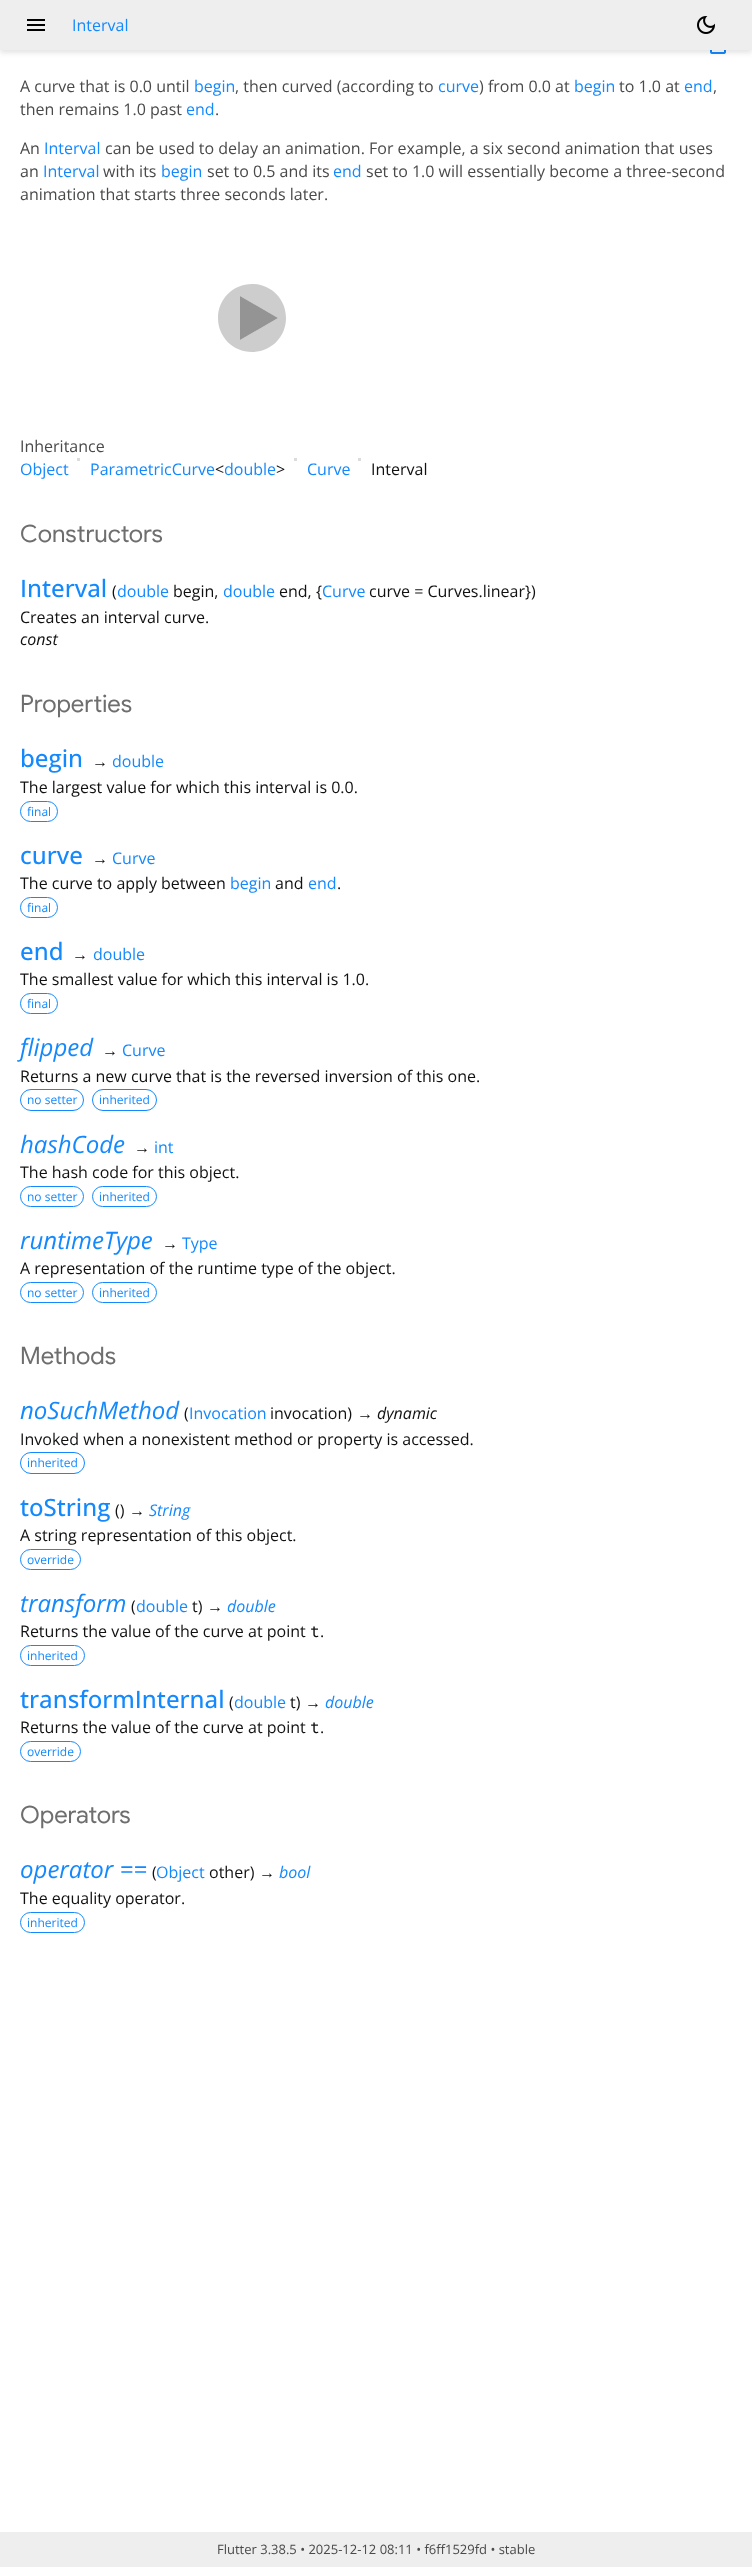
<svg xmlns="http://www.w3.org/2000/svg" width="752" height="2567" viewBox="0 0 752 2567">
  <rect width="100%" height="100%" fill="rgb(255,255,255)"/>
  <image x="710" y="50" width="16" height="4" href="pic3.png"/>
  <rect x="0" y="3" width="752" height="50" fill="rgba(0,0,0,0.1)" filter="blur(2.5px)"/>
  <rect x="0" y="0" width="752" height="50" fill="rgb(238,238,238)"/>
  <image x="27" y="19" width="18" height="12" href="pic1.png"/>
  <text x="72" y="31" font-family="Open Sans" font-size="16" fill="rgb(19,137,253)">Interval</text>
  <image x="697" y="16" width="18" height="18" href="pic2.png"/>
  <text x="20" y="92" font-family="Open Sans" font-size="16" fill="rgb(74,74,74)">A curve that is 0.0 until</text>
  <text x="194" y="92" font-family="Open Sans" font-size="16" fill="rgb(19,137,253)">begin</text>
  <text x="235" y="92" font-family="Open Sans" font-size="16" fill="rgb(74,74,74)">, then curved (according to</text>
  <text x="438" y="92" font-family="Open Sans" font-size="16" fill="rgb(19,137,253)">curve</text>
  <text x="479" y="92" font-family="Open Sans" font-size="16" fill="rgb(74,74,74)">) from 0.0 at</text>
  <text x="574" y="92" font-family="Open Sans" font-size="16" fill="rgb(19,137,253)">begin</text>
  <text x="619" y="92" font-family="Open Sans" font-size="16" fill="rgb(74,74,74)">to 1.0 at</text>
  <text x="684" y="92" font-family="Open Sans" font-size="16" fill="rgb(19,137,253)">end</text>
  <g font-family="Open Sans" font-size="16" fill="rgb(74,74,74)">
    <text x="713" y="92">,</text>
    <text x="20" y="115">then remains 1.0 past</text>
  </g>
  <text x="186" y="115" font-family="Open Sans" font-size="16" fill="rgb(19,137,253)">end</text>
  <g font-family="Open Sans" font-size="16" fill="rgb(74,74,74)">
    <text x="215" y="115">.</text>
    <text x="20" y="154">An</text>
  </g>
  <text x="44" y="154" font-family="Open Sans" font-size="16" fill="rgb(19,137,253)">Interval</text>
  <g font-family="Open Sans" font-size="16" fill="rgb(74,74,74)">
    <text x="105" y="154">can be used to delay an animation. For example, a six second animation that uses</text>
    <text x="20" y="177">an</text>
  </g>
  <text x="43" y="177" font-family="Open Sans" font-size="16" fill="rgb(19,137,253)">Interval</text>
  <text x="103" y="177" font-family="Open Sans" font-size="16" fill="rgb(74,74,74)">with its</text>
  <text x="161" y="177" font-family="Open Sans" font-size="16" fill="rgb(19,137,253)">begin</text>
  <text x="207" y="177" font-family="Open Sans" font-size="16" fill="rgb(74,74,74)">set to 0.5 and its</text>
  <text x="333" y="177" font-family="Open Sans" font-size="16" fill="rgb(19,137,253)">end</text>
  <g font-family="Open Sans" font-size="16" fill="rgb(74,74,74)">
    <text x="366" y="177">set to 1.0 will essentially become a three-second</text>
    <text x="20" y="200">animation that starts three seconds later.</text>
  </g>
  <path d="M286 318C286 299 271 284 252 284C233 284 218 299 218 318C218 337 233 352 252 352C271 352 286 337 286 318M278 318L240 340V296L278 318H286Z" fill="rgb(205,205,205)"/>
  <path d="M278 318L240 340V296Z" fill="rgba(125,125,125,0.82)"/>
  <text x="20" y="452" font-family="Open Sans" font-size="16" fill="rgb(74,74,74)">Inheritance</text>
  <text x="20" y="475" font-family="Open Sans" font-size="16" fill="rgb(19,137,253)">Object</text>
  <rect x="77" y="458" width="3" height="3" fill="rgb(220,220,220)"/>
  <text x="90" y="475" font-family="Open Sans" font-size="16" fill="rgb(19,137,253)">ParametricCurve</text>
  <text x="215" y="475" font-family="Open Sans" font-size="16" fill="rgb(17,17,17)">&lt;</text>
  <text x="224" y="475" font-family="Open Sans" font-size="16" fill="rgb(19,137,253)">double</text>
  <text x="276" y="475" font-family="Open Sans" font-size="16" fill="rgb(17,17,17)">&gt;</text>
  <rect x="294" y="458" width="3" height="3" fill="rgb(220,220,220)"/>
  <text x="307" y="475" font-family="Open Sans" font-size="16" fill="rgb(19,137,253)">Curve</text>
  <rect x="358" y="458" width="3" height="3" fill="rgb(220,220,220)"/>
  <text x="371" y="475" font-family="Open Sans" font-size="16" fill="rgb(17,17,17)">Interval</text>
  <text x="20" y="542" font-family="Google Sans" font-size="24" fill="rgb(110,110,110)">Constructors</text>
  <text x="20" y="597" font-family="Open Sans" font-size="24" font-weight="500" fill="rgb(19,137,253)">Interval</text>
  <text x="112" y="597" font-family="Open Sans" font-size="16" fill="rgb(17,17,17)">(</text>
  <text x="117" y="597" font-family="Open Sans" font-size="16" fill="rgb(19,137,253)">double</text>
  <text x="173" y="597" font-family="Open Sans" font-size="16" fill="rgb(17,17,17)">begin,</text>
  <text x="223" y="597" font-family="Open Sans" font-size="16" fill="rgb(19,137,253)">double</text>
  <text x="279" y="597" font-family="Open Sans" font-size="16" fill="rgb(17,17,17)">end, {</text>
  <text x="322" y="597" font-family="Open Sans" font-size="16" fill="rgb(19,137,253)">Curve</text>
  <g font-family="Open Sans" font-size="16" fill="rgb(17,17,17)">
    <text x="369" y="597">curve = Curves.linear})</text>
    <text x="20" y="623">Creates an interval curve.</text>
  </g>
  <text x="20" y="645" font-family="Open Sans" font-size="16" font-style="italic" fill="rgb(17,17,17)">const</text>
  <text x="20" y="712" font-family="Google Sans" font-size="24" fill="rgb(110,110,110)">Properties</text>
  <text x="20" y="767" font-family="Open Sans" font-size="24" font-weight="500" fill="rgb(19,137,253)">begin</text>
  <text x="92" y="767" font-family="Liberation Sans" font-size="16" fill="rgb(17,17,17)">→</text>
  <text x="112" y="767" font-family="Open Sans" font-size="16" fill="rgb(19,137,253)">double</text>
  <text x="20" y="793" font-family="Open Sans" font-size="16" fill="rgb(17,17,17)">The largest value for which this interval is 0.0.</text>
  <rect x="20.5" y="801.5" width="37" height="20" rx="10" fill="none" stroke="rgb(19,137,253)"/>
  <text x="27" y="816" font-family="Open Sans" font-size="12" fill="rgb(19,137,253)">final</text>
  <text x="20" y="864" font-family="Open Sans" font-size="24" font-weight="500" fill="rgb(19,137,253)">curve</text>
  <text x="92" y="864" font-family="Liberation Sans" font-size="16" fill="rgb(17,17,17)">→</text>
  <text x="112" y="864" font-family="Open Sans" font-size="16" fill="rgb(19,137,253)">Curve</text>
  <text x="20" y="889" font-family="Open Sans" font-size="16" fill="rgb(17,17,17)">The curve to apply between</text>
  <text x="230" y="889" font-family="Open Sans" font-size="16" fill="rgb(19,137,253)">begin</text>
  <text x="275" y="889" font-family="Open Sans" font-size="16" fill="rgb(17,17,17)">and</text>
  <text x="308" y="889" font-family="Open Sans" font-size="16" fill="rgb(19,137,253)">end</text>
  <text x="337" y="889" font-family="Open Sans" font-size="16" fill="rgb(17,17,17)">.</text>
  <rect x="20.5" y="897.5" width="37" height="20" rx="10" fill="none" stroke="rgb(19,137,253)"/>
  <text x="27" y="912" font-family="Open Sans" font-size="12" fill="rgb(19,137,253)">final</text>
  <text x="20" y="960" font-family="Open Sans" font-size="24" font-weight="500" fill="rgb(19,137,253)">end</text>
  <text x="72" y="960" font-family="Liberation Sans" font-size="16" fill="rgb(17,17,17)">→</text>
  <text x="93" y="960" font-family="Open Sans" font-size="16" fill="rgb(19,137,253)">double</text>
  <text x="20" y="985" font-family="Open Sans" font-size="16" fill="rgb(17,17,17)">The smallest value for which this interval is 1.0.</text>
  <rect x="20.5" y="993.5" width="37" height="20" rx="10" fill="none" stroke="rgb(19,137,253)"/>
  <text x="27" y="1008" font-family="Open Sans" font-size="12" fill="rgb(19,137,253)">final</text>
  <text x="20" y="1056" font-family="Open Sans" font-size="24" font-style="italic" fill="rgb(19,137,253)">flipped</text>
  <text x="102" y="1056" font-family="Liberation Sans" font-size="16" fill="rgb(17,17,17)">→</text>
  <text x="122" y="1056" font-family="Open Sans" font-size="16" fill="rgb(19,137,253)">Curve</text>
  <text x="20" y="1082" font-family="Open Sans" font-size="16" fill="rgb(17,17,17)">Returns a new curve that is the reversed inversion of this one.</text>
  <rect x="20.5" y="1089.5" width="63" height="21" rx="10.5" fill="none" stroke="rgb(19,137,253)"/>
  <text x="27" y="1104" font-family="Open Sans" font-size="12" fill="rgb(19,137,253)">no setter</text>
  <rect x="92.5" y="1089.5" width="64" height="21" rx="10.5" fill="none" stroke="rgb(19,137,253)"/>
  <text x="99" y="1104" font-family="Open Sans" font-size="12" fill="rgb(19,137,253)">inherited</text>
  <text x="20" y="1153" font-family="Open Sans" font-size="24" font-style="italic" fill="rgb(19,137,253)">hashCode</text>
  <text x="134" y="1153" font-family="Liberation Sans" font-size="16" fill="rgb(17,17,17)">→</text>
  <text x="154" y="1153" font-family="Open Sans" font-size="16" fill="rgb(19,137,253)">int</text>
  <text x="20" y="1178" font-family="Open Sans" font-size="16" fill="rgb(17,17,17)">The hash code for this object.</text>
  <rect x="20.5" y="1186.5" width="63" height="20" rx="10" fill="none" stroke="rgb(19,137,253)"/>
  <text x="27" y="1201" font-family="Open Sans" font-size="12" fill="rgb(19,137,253)">no setter</text>
  <rect x="92.5" y="1186.5" width="64" height="20" rx="10" fill="none" stroke="rgb(19,137,253)"/>
  <text x="99" y="1201" font-family="Open Sans" font-size="12" fill="rgb(19,137,253)">inherited</text>
  <text x="20" y="1249" font-family="Open Sans" font-size="24" font-style="italic" fill="rgb(19,137,253)">runtimeType</text>
  <text x="162" y="1249" font-family="Liberation Sans" font-size="16" fill="rgb(17,17,17)">→</text>
  <text x="182" y="1249" font-family="Open Sans" font-size="16" fill="rgb(19,137,253)">Type</text>
  <text x="20" y="1274" font-family="Open Sans" font-size="16" fill="rgb(17,17,17)">A representation of the runtime type of the object.</text>
  <rect x="20.5" y="1282.5" width="63" height="20" rx="10" fill="none" stroke="rgb(19,137,253)"/>
  <text x="27" y="1297" font-family="Open Sans" font-size="12" fill="rgb(19,137,253)">no setter</text>
  <rect x="92.5" y="1282.5" width="64" height="20" rx="10" fill="none" stroke="rgb(19,137,253)"/>
  <text x="99" y="1297" font-family="Open Sans" font-size="12" fill="rgb(19,137,253)">inherited</text>
  <text x="20" y="1364" font-family="Google Sans" font-size="24" fill="rgb(110,110,110)">Methods</text>
  <text x="20" y="1419" font-family="Open Sans" font-size="24" font-style="italic" fill="rgb(19,137,253)">noSuchMethod</text>
  <text x="184" y="1419" font-family="Open Sans" font-size="16" fill="rgb(17,17,17)">(</text>
  <text x="189" y="1419" font-family="Open Sans" font-size="16" fill="rgb(19,137,253)">Invocation</text>
  <text x="270" y="1419" font-family="Open Sans" font-size="16" fill="rgb(17,17,17)">invocation)</text>
  <text x="357" y="1419" font-family="Liberation Sans" font-size="16" font-style="italic" fill="rgb(17,17,17)">→</text>
  <text x="377" y="1419" font-family="Open Sans" font-size="16" font-style="italic" fill="rgb(17,17,17)">dynamic</text>
  <text x="20" y="1445" font-family="Open Sans" font-size="16" fill="rgb(17,17,17)">Invoked when a nonexistent method or property is accessed.</text>
  <rect x="20.5" y="1452.5" width="64" height="21" rx="10.5" fill="none" stroke="rgb(19,137,253)"/>
  <text x="27" y="1467" font-family="Open Sans" font-size="12" fill="rgb(19,137,253)">inherited</text>
  <text x="20" y="1516" font-family="Open Sans" font-size="24" font-weight="500" fill="rgb(19,137,253)">toString</text>
  <text x="115" y="1516" font-family="Open Sans" font-size="16" fill="rgb(17,17,17)">()</text>
  <text x="129" y="1516" font-family="Liberation Sans" font-size="16" font-style="italic" fill="rgb(17,17,17)">→</text>
  <text x="149" y="1516" font-family="Open Sans" font-size="16" font-style="italic" fill="rgb(19,137,253)">String</text>
  <text x="20" y="1541" font-family="Open Sans" font-size="16" fill="rgb(17,17,17)">A string representation of this object.</text>
  <rect x="20.5" y="1549.5" width="60" height="20" rx="10" fill="none" stroke="rgb(19,137,253)"/>
  <text x="27" y="1564" font-family="Open Sans" font-size="12" fill="rgb(19,137,253)">override</text>
  <text x="20" y="1612" font-family="Open Sans" font-size="24" font-style="italic" fill="rgb(19,137,253)">transform</text>
  <text x="131" y="1612" font-family="Open Sans" font-size="16" fill="rgb(17,17,17)">(</text>
  <text x="136" y="1612" font-family="Open Sans" font-size="16" fill="rgb(19,137,253)">double</text>
  <text x="192" y="1612" font-family="Open Sans" font-size="16" fill="rgb(17,17,17)">t)</text>
  <text x="207" y="1612" font-family="Liberation Sans" font-size="16" font-style="italic" fill="rgb(17,17,17)">→</text>
  <text x="227" y="1612" font-family="Open Sans" font-size="16" font-style="italic" fill="rgb(19,137,253)">double</text>
  <text x="20" y="1637" font-family="Open Sans" font-size="16" fill="rgb(17,17,17)">Returns the value of the curve at point</text>
  <text x="310" y="1637" font-family="Roboto Mono" font-size="16" fill="rgb(17,17,17)">t</text>
  <text x="320" y="1637" font-family="Open Sans" font-size="16" fill="rgb(17,17,17)">.</text>
  <rect x="20.5" y="1645.5" width="64" height="20" rx="10" fill="none" stroke="rgb(19,137,253)"/>
  <text x="27" y="1660" font-family="Open Sans" font-size="12" fill="rgb(19,137,253)">inherited</text>
  <text x="20" y="1708" font-family="Open Sans" font-size="24" font-weight="500" fill="rgb(19,137,253)">transformInternal</text>
  <text x="229" y="1708" font-family="Open Sans" font-size="16" fill="rgb(17,17,17)">(</text>
  <text x="234" y="1708" font-family="Open Sans" font-size="16" fill="rgb(19,137,253)">double</text>
  <text x="290" y="1708" font-family="Open Sans" font-size="16" fill="rgb(17,17,17)">t)</text>
  <text x="305" y="1708" font-family="Liberation Sans" font-size="16" font-style="italic" fill="rgb(17,17,17)">→</text>
  <text x="325" y="1708" font-family="Open Sans" font-size="16" font-style="italic" fill="rgb(19,137,253)">double</text>
  <text x="20" y="1733" font-family="Open Sans" font-size="16" fill="rgb(17,17,17)">Returns the value of the curve at point</text>
  <text x="310" y="1733" font-family="Roboto Mono" font-size="16" fill="rgb(17,17,17)">t</text>
  <text x="320" y="1733" font-family="Open Sans" font-size="16" fill="rgb(17,17,17)">.</text>
  <rect x="20.5" y="1741.5" width="60" height="20" rx="10" fill="none" stroke="rgb(19,137,253)"/>
  <text x="27" y="1756" font-family="Open Sans" font-size="12" fill="rgb(19,137,253)">override</text>
  <text x="20" y="1823" font-family="Google Sans" font-size="24" fill="rgb(110,110,110)">Operators</text>
  <text x="20" y="1878" font-family="Open Sans" font-size="24" font-style="italic" fill="rgb(19,137,253)">operator ==</text>
  <text x="152" y="1878" font-family="Open Sans" font-size="16" fill="rgb(17,17,17)">(</text>
  <text x="156" y="1878" font-family="Open Sans" font-size="16" fill="rgb(19,137,253)">Object</text>
  <text x="209" y="1878" font-family="Open Sans" font-size="16" fill="rgb(17,17,17)">other)</text>
  <text x="259" y="1878" font-family="Liberation Sans" font-size="16" font-style="italic" fill="rgb(17,17,17)">→</text>
  <text x="279" y="1878" font-family="Open Sans" font-size="16" font-style="italic" fill="rgb(19,137,253)">bool</text>
  <text x="20" y="1904" font-family="Open Sans" font-size="16" fill="rgb(17,17,17)">The equality operator.</text>
  <rect x="20.5" y="1912.5" width="64" height="20" rx="10" fill="none" stroke="rgb(19,137,253)"/>
  <text x="27" y="1927" font-family="Open Sans" font-size="12" fill="rgb(19,137,253)">inherited</text>
  <rect x="0" y="2532" width="752" height="35" fill="rgb(238,238,238)"/>
  <text x="217" y="2554" font-family="Open Sans" font-size="13" fill="rgb(74,74,74)">Flutter 3.38.5 • 2025-12-12 08:11 • f6ff1529fd • stable</text>
</svg>
